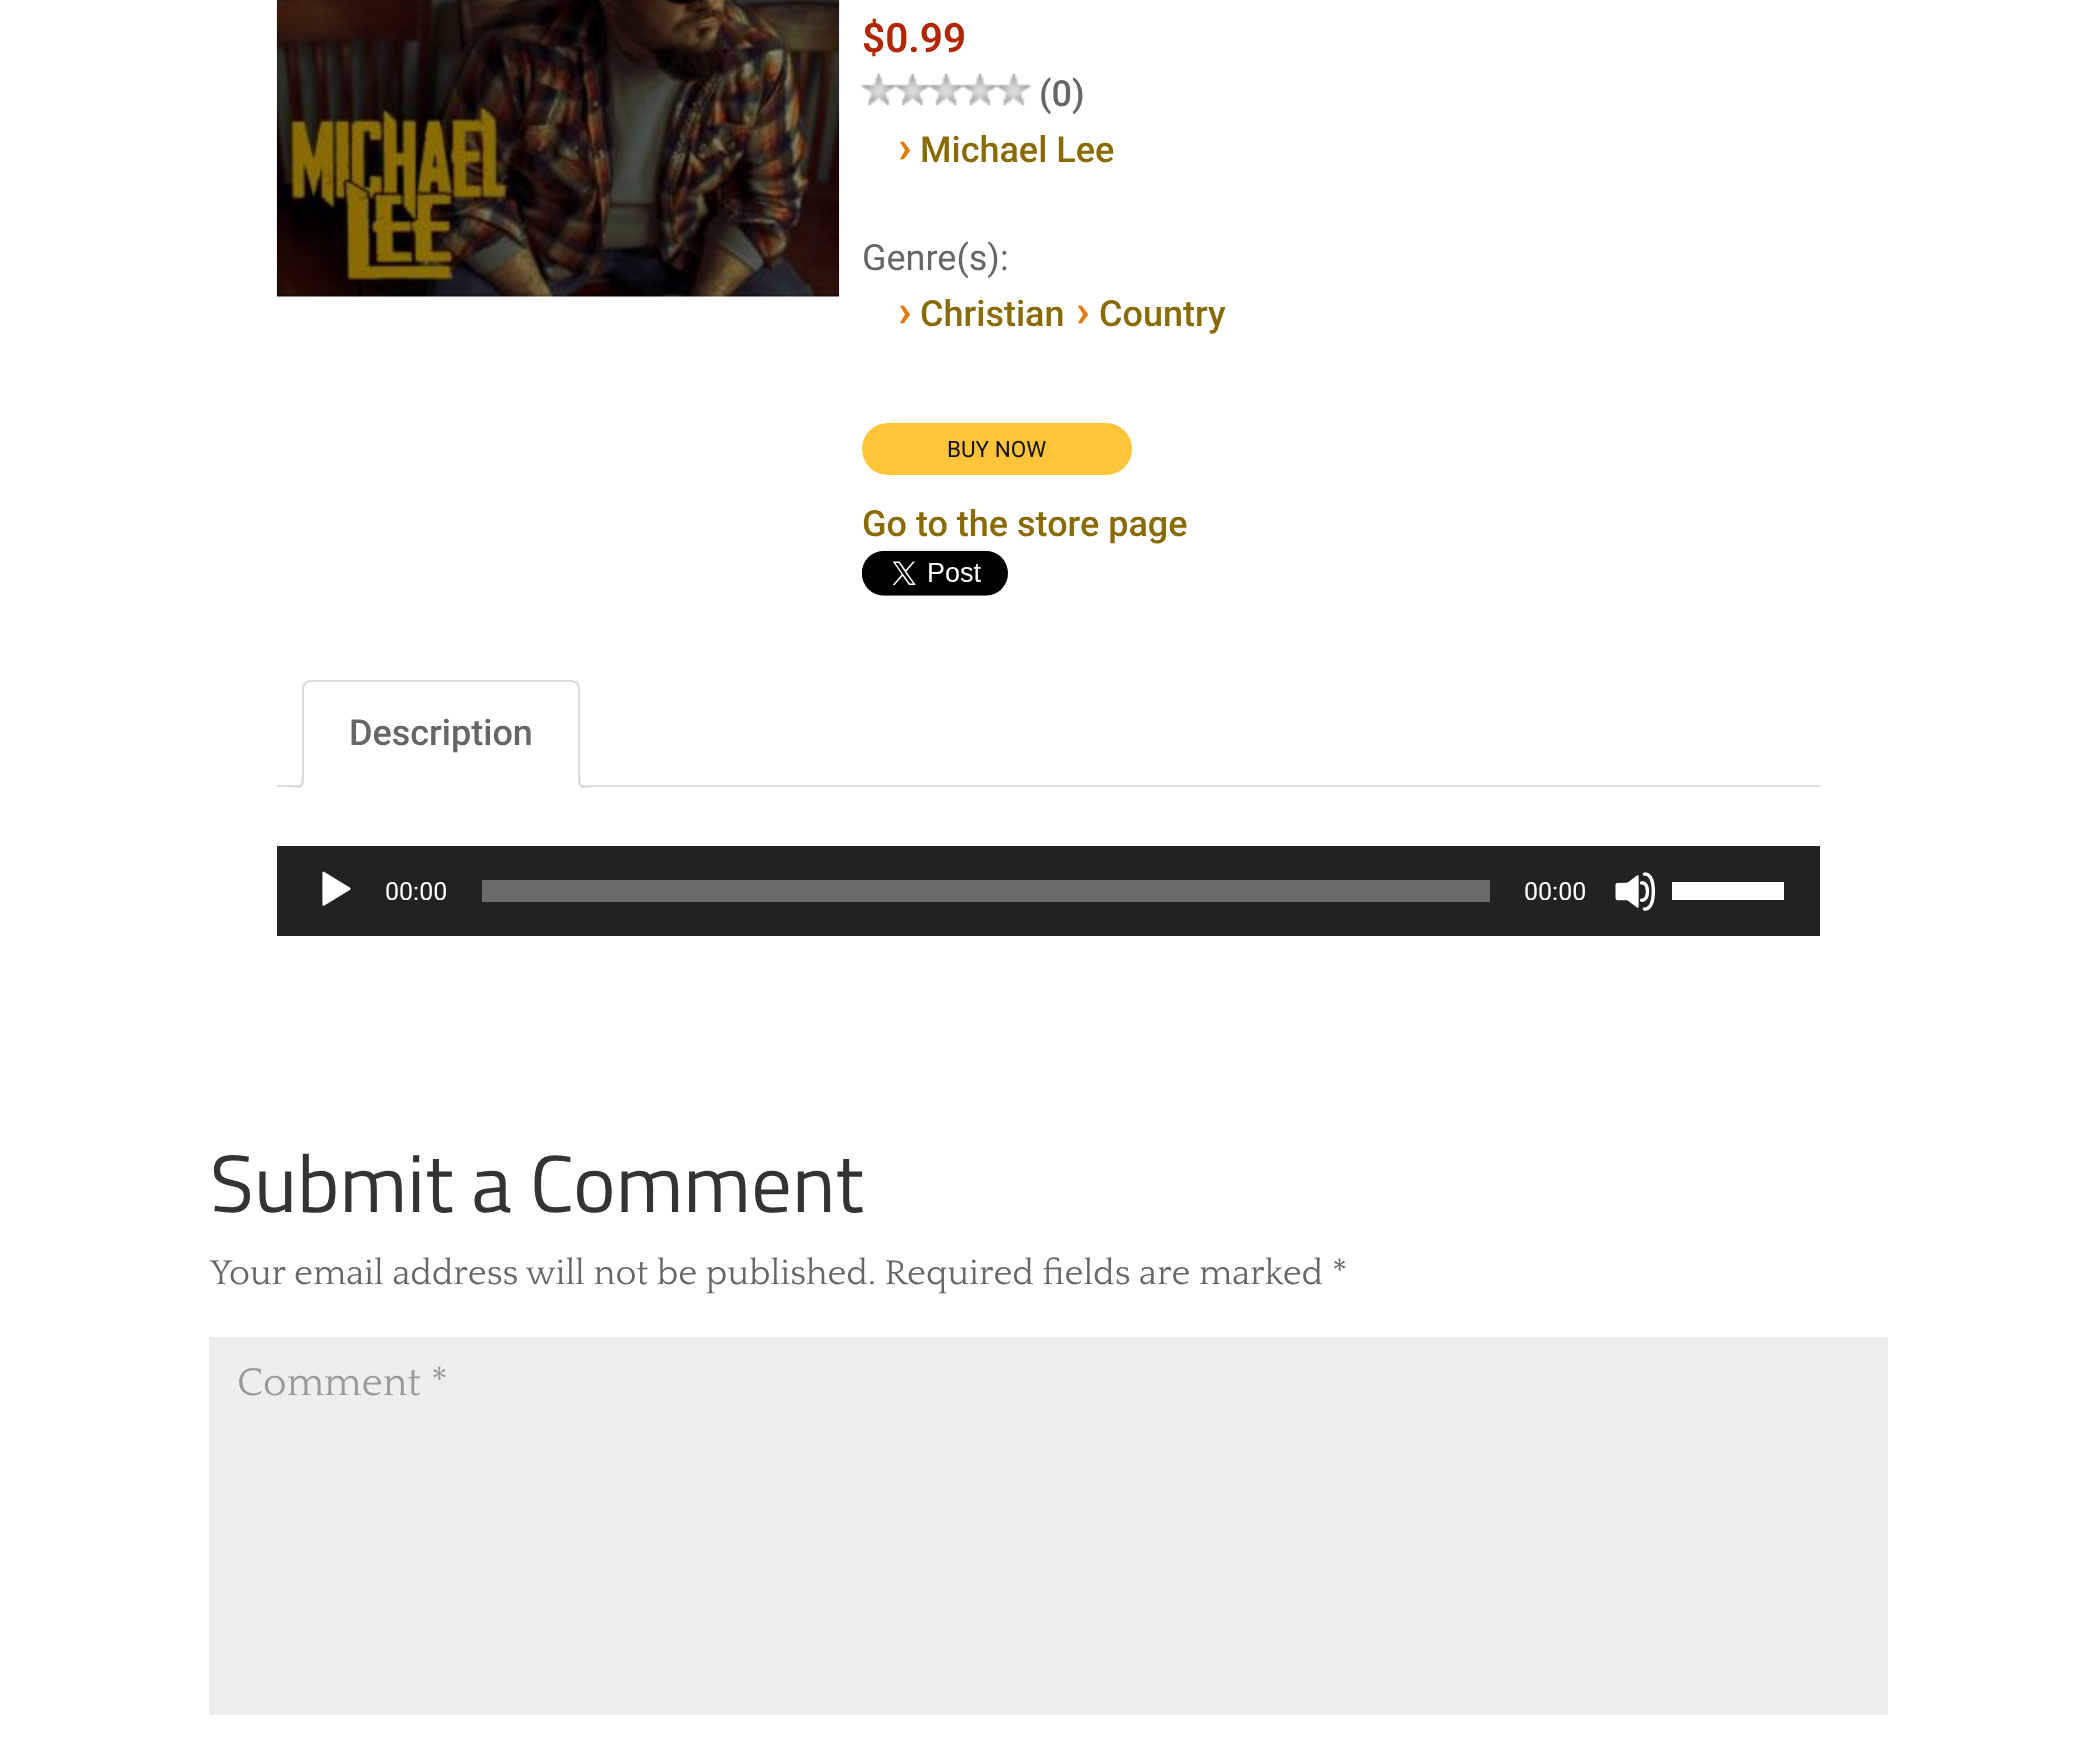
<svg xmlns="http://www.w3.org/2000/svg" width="2095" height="1753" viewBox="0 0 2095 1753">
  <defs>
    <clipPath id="clip1"><rect x="277" y="680" width="1543" height="108"/></clipPath>
    <clipPath id="clip2"><rect x="371" y="846" width="88" height="54"/></clipPath>
    <clipPath id="clip3"><rect x="1512" y="846" width="88" height="54"/></clipPath>
  </defs>
  <rect width="100%" height="100%" fill="rgb(255,255,255)"/>
  <image x="276" y="0" width="564" height="297" href="pic1.png"/>
  <text x="862" y="52" font-family="Roboto" font-size="40.5" font-weight="600" fill="rgb(177,39,4)">$0.99</text>
  <image x="861" y="73" width="35" height="33" href="pic2.png"/>
  <image x="895" y="73" width="35" height="33" href="pic3.png"/>
  <image x="929" y="73" width="34" height="33" href="pic4.png"/>
  <image x="963" y="73" width="34" height="33" href="pic5.png"/>
  <image x="996" y="73" width="35" height="33" href="pic6.png"/>
  <text x="1039" y="106" font-family="Roboto" font-size="36" font-weight="500" fill="rgb(102,102,102)">(0)</text>
  <text x="898" y="162" font-family="Roboto" font-size="45" font-weight="bold" fill="rgb(228,121,17)">›</text>
  <text x="920" y="162" font-family="Roboto" font-size="36" font-weight="500" fill="rgb(138,107,3)">Michael Lee</text>
  <text x="862" y="270" font-family="Roboto" font-size="36" fill="rgb(102,102,102)">Genre(s):</text>
  <text x="898" y="326" font-family="Roboto" font-size="45" font-weight="bold" fill="rgb(228,121,17)">›</text>
  <text x="920" y="326" font-family="Roboto" font-size="36" font-weight="500" fill="rgb(138,107,3)">Christian</text>
  <text x="1076" y="326" font-family="Roboto" font-size="45" font-weight="bold" fill="rgb(228,121,17)">›</text>
  <text x="1099" y="326" font-family="Roboto" font-size="36" font-weight="500" fill="rgb(138,107,3)">Country</text>
  <rect x="862" y="423" width="270" height="52" rx="26" fill="rgb(255,196,57)"/>
  <text x="947" y="457" font-family="Roboto" font-size="22.5" fill="rgb(17,17,17)">BUY NOW</text>
  <text x="862" y="536" font-family="Roboto" font-size="36" font-weight="500" fill="rgb(138,107,3)">Go to the store page</text>
  <image x="861" y="550" width="147" height="46" href="pic7.png"/>
  <rect x="277" y="785" width="1543" height="2" fill="rgb(224,218,223)"/>
  <path d="M311 680H572C577 680 581 684 581 689V788H302V689C302 684 306 680 311 680Z" fill="rgb(255,255,255)"/>
  <path d="M310 680C308 680 306 681 304 682L306 684C307 683 308 682 310 682H572C574 682 575 683 576 684L578 682C576 681 574 680 572 680Z" fill="rgb(224,218,223)"/>
  <path d="M580 787V688C580 686 579 684 578 682L576 684L578 687V785Z" fill="rgb(224,218,223)"/>
  <path d="M302 788L304 785H578L580 787V788Z" fill="rgb(255,255,255)"/>
  <path d="M304 682C303 684 302 686 302 688V787L304 785V687L306 684Z" fill="rgb(224,218,223)"/>
  <text x="349" y="745" font-family="Roboto" font-size="36" font-weight="500" fill="rgb(102,102,102)">Description</text>
  <g clip-path="url(#clip1)">
    <path d="M295 789.5V794C300.5 794 306.5 793.5 308 787V781H303.5C303.5 786 300 789.5 295 789.5Z" fill="rgb(255,255,255)"/>
    <path d="M290 776H304C304 782 303.5 788 296.5 789.5L290 790ZM290 776H301.5C301.5 781 302 786 296 787.5H290Z" fill="rgb(224,218,223)" fill-rule="evenodd"/>
    <path d="M574 781V787C575.5 793.5 581.5 794 587 794V789.5C582 789.5 578.5 786 578.5 781Z" fill="rgb(255,255,255)"/>
    <path d="M578 776H592V790H587C582.5 790 578 785.5 578 781ZM580.5 776H592V787.5C587 787.5 580.5 787.5 580.5 781Z" fill="rgb(224,218,223)" fill-rule="evenodd"/>
  </g>
  <rect x="277" y="846" width="1543" height="90" fill="rgb(34,34,34)"/>
  <image x="322" y="871" width="29" height="35" href="pic8.png"/>
  <g clip-path="url(#clip2)">
    <text x="385" y="900" font-family="Roboto" font-size="25" fill="rgb(255,255,255)">00:00</text>
  </g>
  <rect x="482" y="880" width="1008" height="22" fill="rgb(107,107,107)"/>
  <g clip-path="url(#clip3)">
    <text x="1524" y="900" font-family="Roboto" font-size="25" fill="rgb(255,255,255)">00:00</text>
  </g>
  <image x="1615" y="872" width="40" height="39" href="pic9.png"/>
  <rect x="1672" y="882" width="112" height="18" fill="rgb(255,255,255)"/>
  <text x="210" y="1212" font-family="Titillium Web" font-size="81" fill="rgb(51,51,51)">Submit a Comment</text>
  <text x="210" y="1284" font-family="Quattrocento" font-size="36" fill="rgb(102,102,102)">Your email address will not be published. Required fields are marked *</text>
  <rect x="209" y="1337" width="1679" height="378" fill="rgb(238,238,238)"/>
  <text x="237" y="1395" font-family="Quattrocento" font-size="40.5" fill="rgb(153,153,153)">Comment *</text>
</svg>
